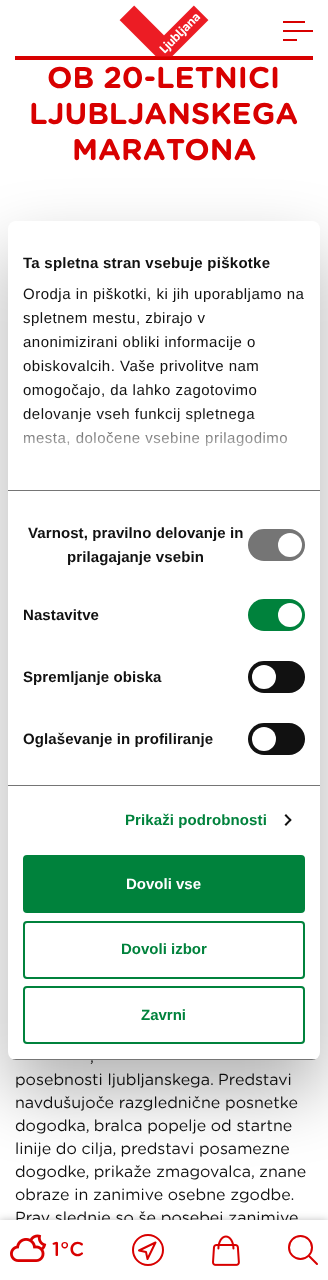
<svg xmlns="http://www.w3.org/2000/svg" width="328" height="1280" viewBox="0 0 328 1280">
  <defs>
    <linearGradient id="g1" gradientUnits="userSpaceOnUse" x1="158" y1="490" x2="158" y2="415"><stop offset="0" stop-color="rgb(255,255,255)"/><stop offset="0.5" stop-color="rgb(255,255,255)" stop-opacity="0.8"/><stop offset="1" stop-color="rgb(255,255,255)" stop-opacity="0"/></linearGradient>
    <clipPath id="clip1"><rect x="8" y="221" width="312" height="839" rx="8"/></clipPath>
  </defs>
  <rect width="100%" height="100%" fill="rgb(255,255,255)"/>
  <rect x="15" y="56" width="298" height="4" fill="rgb(216,0,0)"/>
  <image x="119" y="5" width="90" height="52" href="pic1.png"/>
  <rect x="283" y="30" width="30" height="2" fill="rgb(216,0,0)"/>
  <rect x="283" y="21" width="22" height="2" fill="rgb(216,0,0)"/>
  <rect x="283" y="39" width="14" height="2" fill="rgb(216,0,0)"/>
  <g font-family="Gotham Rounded" font-size="30" font-weight="bold" fill="rgb(216,0,0)">
    <text x="47" y="88">OB 20-LETNICI</text>
    <text x="29" y="124">LJUBLJANSKEGA</text>
    <text x="72" y="160">MARATONA</text>
  </g>
  <g font-family="Gotham Rounded" font-size="16" fill="rgb(17,17,17)">
    <text x="90" y="1062">,</text>
    <text>
      <tspan x="15" y="1085">posebnosti ljubljanskega. Predstavi</tspan>
      <tspan x="15" y="1108">navdušujoče razglednične posnetke</tspan>
      <tspan x="15" y="1131">dogodka, bralca popelje od startne</tspan>
      <tspan x="15" y="1154">linije do cilja, predstavi posamezne</tspan>
      <tspan x="15" y="1177">dogodke, prikaže zmagovalca, znane</tspan>
      <tspan x="15" y="1200">obraze in zanimive osebne zgodbe.</tspan>
      <tspan x="15" y="1223">Prav slednje so še posebej zanimive</tspan>
    </text>
  </g>
  <rect x="8" y="253" width="312" height="839" rx="8" fill="rgba(0,0,0,0.3)" filter="blur(34px)"/>
  <rect x="8" y="221" width="312" height="839" rx="8" fill="rgb(255,255,255)"/>
  <rect x="8" y="490" width="312" height="1" fill="rgb(117,117,117)"/>
  <text x="23" y="268" font-family="Liberation Sans" font-size="15" font-weight="bold" letter-spacing="0.25" fill="rgb(17,17,17)">Ta spletna stran vsebuje piškotke</text>
  <g font-family="Liberation Sans" font-size="15" letter-spacing="0.5" fill="rgb(17,17,17)">
    <text>
      <tspan x="23" y="299">Orodja in piškotki, ki jih uporabljamo na</tspan>
      <tspan x="23" y="323">spletnem mestu, zbirajo v</tspan>
      <tspan x="23" y="347">anonimizirani obliki informacije o</tspan>
      <tspan x="23" y="371">obiskovalcih. Vaše privolitve nam</tspan>
      <tspan x="23" y="395">omogočajo, da lahko zagotovimo</tspan>
      <tspan x="23" y="419">delovanje vseh funkcij spletnega</tspan>
      <tspan x="23" y="443">mesta, določene vsebine prilagodimo</tspan>
    </text>
  </g>
  <rect x="24" y="416" width="263" height="31" fill="url(#g1)"/>
  <rect x="8" y="785" width="312" height="1" fill="rgb(117,117,117)"/>
  <g font-family="Liberation Sans" font-size="15" font-weight="bold" letter-spacing="0.1" fill="rgb(17,17,17)">
    <text x="28" y="538">Varnost, pravilno delovanje in</text>
    <text x="67" y="562">prilagajanje vsebin</text>
  </g>
  <rect x="248" y="529" width="57" height="32" rx="16" fill="rgb(117,117,117)"/>
  <circle cx="290" cy="545" r="12" fill="rgb(255,255,255)"/>
  <text x="23" y="620" font-family="Liberation Sans" font-size="15" font-weight="bold" letter-spacing="0.1" fill="rgb(17,17,17)">Nastavitve</text>
  <rect x="248" y="599" width="57" height="32" rx="16" fill="rgb(0,130,60)"/>
  <circle cx="290" cy="615" r="12" fill="rgb(255,255,255)"/>
  <text x="23" y="682" font-family="Liberation Sans" font-size="15" font-weight="bold" letter-spacing="0.1" fill="rgb(17,17,17)">Spremljanje obiska</text>
  <rect x="248" y="661" width="57" height="32" rx="16" fill="rgb(17,17,17)"/>
  <circle cx="264" cy="677" r="12" fill="rgb(255,255,255)"/>
  <text x="23" y="744" font-family="Liberation Sans" font-size="15" font-weight="bold" letter-spacing="0.1" fill="rgb(17,17,17)">Oglaševanje in profiliranje</text>
  <rect x="248" y="723" width="57" height="32" rx="16" fill="rgb(17,17,17)"/>
  <circle cx="264" cy="739" r="12" fill="rgb(255,255,255)"/>
  <text x="125" y="825" font-family="Liberation Sans" font-size="15" font-weight="bold" letter-spacing="0.1" fill="rgb(0,130,60)">Prikaži podrobnosti</text>
  <path d="M286 814L291.5 820L290.5 821.5L284.5 815.5Z" fill="rgb(17,17,17)"/>
  <path d="M290.5 818.5L291.5 820L286 826L284.5 824.5Z" fill="rgb(17,17,17)"/>
  <g clip-path="url(#clip1)">
    <rect x="8" y="1059" width="312" height="1" fill="rgb(117,117,117)"/>
  </g>
  <rect x="24" y="856" width="280" height="56" rx="3" fill="rgb(0,130,60)" stroke="rgb(0,130,60)" stroke-width="2"/>
  <text x="126" y="889" font-family="Liberation Sans" font-size="15" font-weight="bold" fill="rgb(255,255,255)">Dovoli vse</text>
  <rect x="24" y="922" width="280" height="56" rx="3" fill="none" stroke="rgb(0,130,60)" stroke-width="2"/>
  <text x="121" y="954" font-family="Liberation Sans" font-size="15" font-weight="bold" fill="rgb(0,130,60)">Dovoli izbor</text>
  <rect x="24" y="987" width="280" height="56" rx="3" fill="none" stroke="rgb(0,130,60)" stroke-width="2"/>
  <text x="141" y="1020" font-family="Liberation Sans" font-size="15" font-weight="bold" fill="rgb(0,130,60)">Zavrni</text>
  <rect x="0" y="1221" width="328" height="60" fill="rgba(0,0,0,0.3)" filter="blur(4.5px)"/>
  <rect x="0" y="1220" width="328" height="60" fill="rgb(255,255,255)"/>
  <image x="10" y="1234" width="37" height="28" href="pic2.png"/>
  <text x="52" y="1256" font-family="Gotham Rounded" font-size="20" font-weight="500" fill="rgb(216,0,0)">1°C</text>
  <path d="M155.5 1242.5L147.5 1259L146 1252L139 1250.5Z" fill="none" stroke="rgb(216,0,0)" stroke-width="2" stroke-linejoin="round"/>
  <circle cx="148" cy="1250" r="15" fill="none" stroke="rgb(216,0,0)" stroke-width="2"/>
  <image x="212" y="1235" width="28" height="31" href="pic3.png"/>
  <circle cx="300.5" cy="1247.5" r="11.5" fill="none" stroke="rgb(216,0,0)" stroke-width="2"/>
  <path d="M309 1256L317 1264" fill="none" stroke="rgb(216,0,0)" stroke-width="2" stroke-linecap="round"/>
</svg>
